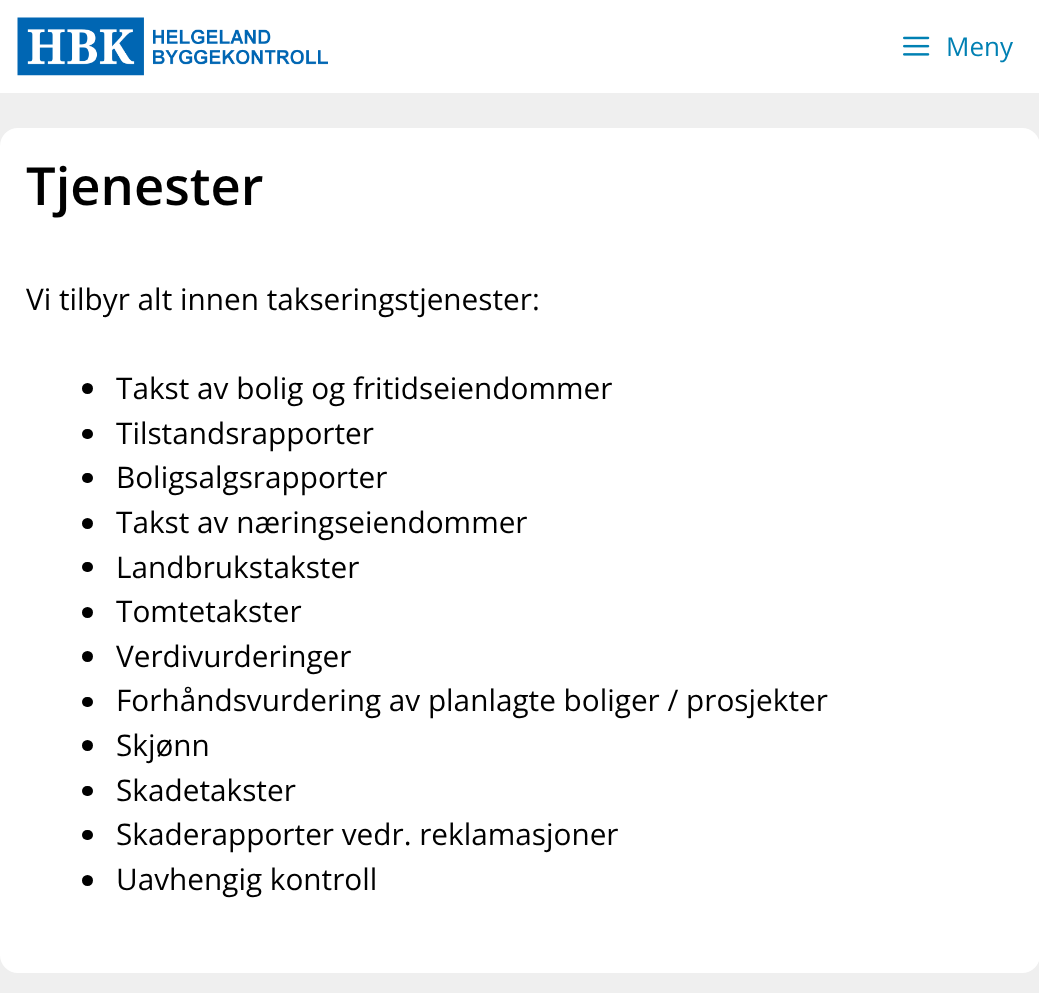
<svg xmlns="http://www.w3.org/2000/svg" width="1039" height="993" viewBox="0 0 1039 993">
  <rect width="100%" height="100%" fill="rgb(239,239,239)"/>
  <rect x="0" y="0" width="1039" height="93" fill="rgb(255,255,255)"/>
  <image x="17" y="17" width="311" height="59" href="pic1.png"/>
  <image x="903" y="36" width="27" height="20" href="pic2.png"/>
  <text x="946" y="56" font-family="Open Sans" font-size="26" fill="rgb(0,128,179)">Meny</text>
  <rect x="0" y="128" width="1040" height="845" rx="18" fill="rgb(255,255,255)"/>
  <text x="26" y="205" font-family="Open Sans" font-size="52.5" font-weight="600" fill="rgb(0,0,0)">Tjenester</text>
  <text x="26" y="310" font-family="Open Sans" font-size="29.75" fill="rgb(0,0,0)">Vi tilbyr alt innen takseringstjenester:</text>
  <circle cx="87.5" cy="388.5" r="5.5" fill="rgb(0,0,0)"/>
  <text x="116" y="399" font-family="Open Sans" font-size="29.75" fill="rgb(0,0,0)">Takst av bolig og fritidseiendommer</text>
  <rect x="82" y="429" width="11" height="10" rx="5" fill="rgb(0,0,0)"/>
  <text x="116" y="444" font-family="Open Sans" font-size="29.75" fill="rgb(0,0,0)">Tilstandsrapporter</text>
  <rect x="82" y="473" width="11" height="10" rx="5" fill="rgb(0,0,0)"/>
  <text x="116" y="488" font-family="Open Sans" font-size="29.75" fill="rgb(0,0,0)">Boligsalgsrapporter</text>
  <circle cx="87.5" cy="523.5" r="5.5" fill="rgb(0,0,0)"/>
  <text x="116" y="533" font-family="Open Sans" font-size="29.75" fill="rgb(0,0,0)">Takst av næringseiendommer</text>
  <rect x="82" y="562" width="11" height="10" rx="5" fill="rgb(0,0,0)"/>
  <text x="116" y="578" font-family="Open Sans" font-size="29.75" fill="rgb(0,0,0)">Landbrukstakster</text>
  <circle cx="87.5" cy="612.5" r="5.5" fill="rgb(0,0,0)"/>
  <text x="116" y="622" font-family="Open Sans" font-size="29.75" fill="rgb(0,0,0)">Tomtetakster</text>
  <circle cx="87.5" cy="656.5" r="5.5" fill="rgb(0,0,0)"/>
  <text x="116" y="667" font-family="Open Sans" font-size="29.75" fill="rgb(0,0,0)">Verdivurderinger</text>
  <rect x="82" y="697" width="11" height="10" rx="5" fill="rgb(0,0,0)"/>
  <text x="116" y="711" font-family="Open Sans" font-size="29.75" fill="rgb(0,0,0)">Forhåndsvurdering av planlagte boliger / prosjekter</text>
  <circle cx="87.5" cy="745.5" r="5.5" fill="rgb(0,0,0)"/>
  <text x="116" y="756" font-family="Open Sans" font-size="29.75" fill="rgb(0,0,0)">Skjønn</text>
  <rect x="82" y="786" width="11" height="10" rx="5" fill="rgb(0,0,0)"/>
  <text x="116" y="801" font-family="Open Sans" font-size="29.75" fill="rgb(0,0,0)">Skadetakster</text>
  <rect x="82" y="830" width="11" height="10" rx="5" fill="rgb(0,0,0)"/>
  <text x="116" y="845" font-family="Open Sans" font-size="29.75" fill="rgb(0,0,0)">Skaderapporter vedr. reklamasjoner</text>
  <circle cx="87.5" cy="880.5" r="5.5" fill="rgb(0,0,0)"/>
  <text x="116" y="890" font-family="Open Sans" font-size="29.75" fill="rgb(0,0,0)">Uavhengig kontroll</text>
</svg>
